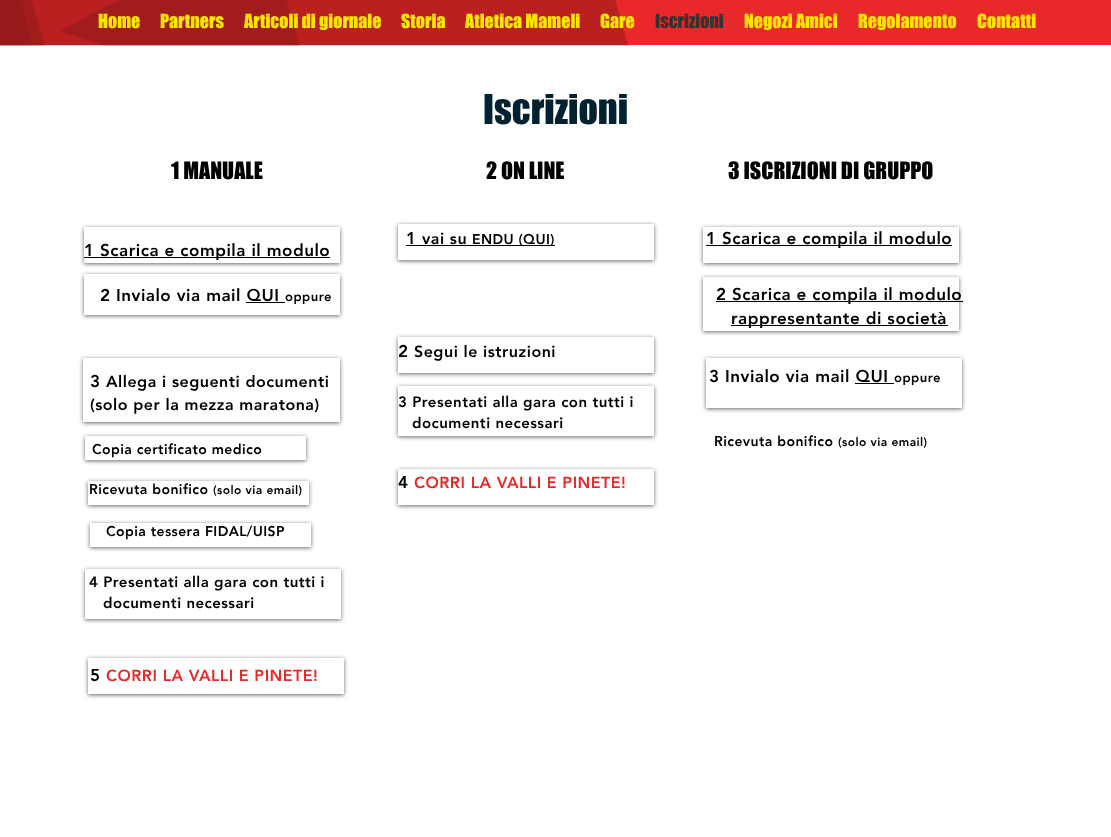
<svg xmlns="http://www.w3.org/2000/svg" width="1111" height="837" viewBox="0 0 1111 837">
  <defs>
    <clipPath id="clip1"><path d="M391 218H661V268H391ZM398 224H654V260H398Z" clip-rule="evenodd"/></clipPath>
    <clipPath id="clip2"><path d="M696 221H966V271H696ZM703 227H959V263H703Z" clip-rule="evenodd"/></clipPath>
    <clipPath id="clip3"><path d="M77 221H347V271H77ZM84 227H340V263H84Z" clip-rule="evenodd"/></clipPath>
    <clipPath id="clip4"><path d="M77 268H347V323H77ZM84 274H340V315H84Z" clip-rule="evenodd"/></clipPath>
    <clipPath id="clip5"><path d="M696 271H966V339H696ZM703 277H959V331H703Z" clip-rule="evenodd"/></clipPath>
    <clipPath id="clip6"><path d="M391 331H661V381H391ZM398 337H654V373H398Z" clip-rule="evenodd"/></clipPath>
    <clipPath id="clip7"><path d="M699 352H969V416H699ZM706 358H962V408H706Z" clip-rule="evenodd"/></clipPath>
    <clipPath id="clip8"><path d="M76 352H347V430H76ZM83 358H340V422H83Z" clip-rule="evenodd"/></clipPath>
    <clipPath id="clip9"><path d="M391 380H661V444H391ZM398 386H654V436H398Z" clip-rule="evenodd"/></clipPath>
    <clipPath id="clip10"><path d="M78 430H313V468H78ZM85 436H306V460H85Z" clip-rule="evenodd"/></clipPath>
    <clipPath id="clip11"><path d="M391 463H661V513H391ZM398 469H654V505H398Z" clip-rule="evenodd"/></clipPath>
    <clipPath id="clip12"><path d="M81 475H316V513H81ZM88 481H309V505H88Z" clip-rule="evenodd"/></clipPath>
    <clipPath id="clip13"><path d="M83 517H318V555H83ZM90 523H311V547H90Z" clip-rule="evenodd"/></clipPath>
    <clipPath id="clip14"><path d="M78 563H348V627H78ZM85 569H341V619H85Z" clip-rule="evenodd"/></clipPath>
    <clipPath id="clip15"><path d="M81 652H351V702H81ZM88 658H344V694H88Z" clip-rule="evenodd"/></clipPath>
  </defs>
  <rect width="100%" height="100%" fill="rgb(255,255,255)"/>
  <rect x="0" y="0" width="1111" height="45" fill="rgb(233,41,41)"/>
  <image x="0" y="0" width="629" height="46" href="pic1.png"/>
  <g font-family="'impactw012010'" font-size="18" fill="rgb(255,230,0)">
    <text x="98" y="28">Home</text>
    <text x="160" y="28">Partners</text>
    <text x="244" y="28">Articoli di giornale</text>
    <text x="401" y="28">Storia</text>
    <text x="465" y="28">Atletica Mameli</text>
    <text x="600" y="28">Gare</text>
  </g>
  <text x="655" y="28" font-family="'impactw012010'" font-size="18" fill="rgb(51,51,51)">Iscrizioni</text>
  <g font-family="'impactw012010'" font-size="18" fill="rgb(255,230,0)">
    <text x="744" y="28">Negozi Amici</text>
    <text x="858" y="28">Regolamento</text>
    <text x="977" y="28">Contatti</text>
  </g>
  <text x="483" y="124" font-family="'impactw012010'" font-size="38" fill="rgb(2,33,49)">Iscrizioni</text>
  <g font-family="'impactw012010'" font-size="22" fill="rgb(0,0,0)">
    <text x="171" y="179">1 MANUALE</text>
    <text x="486" y="179">2 ON LINE</text>
    <text x="728" y="179">3 ISCRIZIONI DI GRUPPO</text>
  </g>
  <g clip-path="url(#clip1)">
    <rect x="398" y="225" width="256" height="36" fill="rgba(0,0,0,0.6)" filter="blur(2px)"/>
  </g>
  <g clip-path="url(#clip2)">
    <rect x="703" y="228" width="256" height="36" fill="rgba(0,0,0,0.6)" filter="blur(2px)"/>
  </g>
  <text x="406" y="244" font-family="'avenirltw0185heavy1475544'" font-size="17" font-weight="900" letter-spacing="0.5" fill="rgb(0,0,0)">1</text>
  <text x="422" y="244" font-family="'avenirltw0185heavy1475544'" font-size="16" font-weight="900" letter-spacing="0.5" fill="rgb(0,0,0)">vai su</text>
  <rect x="406" y="245" width="149" height="1" fill="rgb(0,0,0)"/>
  <text x="472" y="244" font-family="'avenirltw0185heavy1475544'" font-size="14" font-weight="900" letter-spacing="0.4" fill="rgb(0,0,0)">ENDU (QUI)</text>
  <rect x="706" y="245" width="246" height="1" fill="rgb(0,0,0)"/>
  <text x="706" y="244" font-family="'avenirltw0185heavy1475544'" font-size="17" font-weight="900" letter-spacing="0.5" fill="rgb(0,0,0)">1 Scarica e compila il modulo</text>
  <g clip-path="url(#clip3)">
    <rect x="84" y="228" width="256" height="36" fill="rgba(0,0,0,0.6)" filter="blur(2px)"/>
  </g>
  <rect x="84" y="257" width="246" height="1" fill="rgb(0,0,0)"/>
  <text x="84" y="256" font-family="'avenirltw0185heavy1475544'" font-size="17" font-weight="900" letter-spacing="0.5" fill="rgb(0,0,0)">1 Scarica e compila il modulo</text>
  <g clip-path="url(#clip4)">
    <rect x="84" y="275" width="256" height="41" fill="rgba(0,0,0,0.6)" filter="blur(2px)"/>
  </g>
  <text x="100" y="301" font-family="'avenirltw0185heavy1475544'" font-size="17" font-weight="900" letter-spacing="0.5" fill="rgb(0,0,0)">2 Invialo via mail QUI</text>
  <rect x="246" y="302" width="39" height="1" fill="rgb(0,0,0)"/>
  <text x="285" y="301" font-family="'avenirltw0185heavy1475544'" font-size="13" font-weight="900" letter-spacing="0.5" fill="rgb(0,0,0)">oppure</text>
  <g clip-path="url(#clip5)">
    <rect x="703" y="278" width="256" height="54" fill="rgba(0,0,0,0.6)" filter="blur(2px)"/>
  </g>
  <rect x="716" y="301" width="247" height="1" fill="rgb(0,0,0)"/>
  <text x="716" y="300" font-family="'avenirltw0185heavy1475544'" font-size="17" font-weight="900" letter-spacing="0.5" fill="rgb(0,0,0)">2 Scarica e compila il modulo</text>
  <rect x="731" y="325" width="217" height="1" fill="rgb(0,0,0)"/>
  <text x="731" y="324" font-family="'avenirltw0185heavy1475544'" font-size="17" font-weight="900" letter-spacing="0.5" fill="rgb(0,0,0)">rappresentante di società</text>
  <g clip-path="url(#clip6)">
    <rect x="398" y="338" width="256" height="36" fill="rgba(0,0,0,0.6)" filter="blur(2px)"/>
  </g>
  <text x="398" y="357" font-family="'avenirltw0185heavy1475544'" font-size="17" font-weight="900" letter-spacing="0.5" fill="rgb(0,0,0)">2</text>
  <text x="414" y="357" font-family="'avenirltw0185heavy1475544'" font-size="16" font-weight="900" letter-spacing="0.5" fill="rgb(0,0,0)">Segui le istruzioni</text>
  <g clip-path="url(#clip7)">
    <rect x="706" y="359" width="256" height="50" fill="rgba(0,0,0,0.6)" filter="blur(2px)"/>
  </g>
  <g clip-path="url(#clip8)">
    <rect x="83" y="359" width="257" height="64" fill="rgba(0,0,0,0.6)" filter="blur(2px)"/>
  </g>
  <text x="90" y="387" font-family="'avenirltw0185heavy1475544'" font-size="17" font-weight="900" letter-spacing="0.5" fill="rgb(0,0,0)">3</text>
  <g font-family="'avenirltw0185heavy1475544'" font-size="16" font-weight="900" letter-spacing="0.5" fill="rgb(0,0,0)">
    <text x="106" y="387">Allega i seguenti documenti</text>
    <text x="90" y="410">(solo per la mezza maratona)</text>
  </g>
  <g clip-path="url(#clip9)">
    <rect x="398" y="387" width="256" height="50" fill="rgba(0,0,0,0.6)" filter="blur(2px)"/>
  </g>
  <text x="709" y="382" font-family="'avenirltw0185heavy1475544'" font-size="17" font-weight="900" letter-spacing="0.5" fill="rgb(0,0,0)">3 Invialo via mail QUI</text>
  <rect x="855" y="383" width="39" height="1" fill="rgb(0,0,0)"/>
  <text x="894" y="382" font-family="'avenirltw0185heavy1475544'" font-size="13" font-weight="900" letter-spacing="0.5" fill="rgb(0,0,0)">oppure</text>
  <g font-family="'avenirltw0185heavy1475544'" font-size="15" font-weight="900" letter-spacing="0.45" fill="rgb(0,0,0)">
    <text x="398" y="407">3 Presentati alla gara con tutti i</text>
    <text x="412" y="428">documenti necessari</text>
  </g>
  <text x="714" y="446" font-family="'avenirltw0185heavy1475544'" font-size="14" font-weight="900" letter-spacing="0.4" fill="rgb(0,0,0)">Ricevuta bonifico</text>
  <text x="838" y="446" font-family="'avenirltw0185heavy1475544'" font-size="12" font-weight="900" letter-spacing="0.4" fill="rgb(0,0,0)">(solo via email)</text>
  <g clip-path="url(#clip10)">
    <rect x="85" y="437" width="221" height="24" fill="rgba(0,0,0,0.6)" filter="blur(2px)"/>
  </g>
  <text x="92" y="454" font-family="'avenirltw0185heavy1475544'" font-size="14" font-weight="900" letter-spacing="0.4" fill="rgb(0,0,0)">Copia certificato medico</text>
  <g clip-path="url(#clip11)">
    <rect x="398" y="470" width="256" height="36" fill="rgba(0,0,0,0.6)" filter="blur(2px)"/>
  </g>
  <g clip-path="url(#clip12)">
    <rect x="88" y="482" width="221" height="24" fill="rgba(0,0,0,0.6)" filter="blur(2px)"/>
  </g>
  <text x="89" y="494" font-family="'avenirltw0185heavy1475544'" font-size="14" font-weight="900" letter-spacing="0.4" fill="rgb(0,0,0)">Ricevuta bonifico</text>
  <text x="213" y="494" font-family="'avenirltw0185heavy1475544'" font-size="12" font-weight="900" letter-spacing="0.4" fill="rgb(0,0,0)">(solo via email)</text>
  <text x="398" y="488" font-family="'avenirltw0185heavy1475544'" font-size="17" font-weight="900" letter-spacing="0.5" fill="rgb(0,0,0)">4</text>
  <text x="414" y="488" font-family="'avenirltw0185heavy1475544'" font-size="16" font-weight="900" letter-spacing="0.5" fill="rgb(233,41,41)">CORRI LA VALLI E PINETE!</text>
  <g clip-path="url(#clip13)">
    <rect x="90" y="524" width="221" height="24" fill="rgba(0,0,0,0.6)" filter="blur(2px)"/>
  </g>
  <text x="106" y="536" font-family="'avenirltw0185heavy1475544'" font-size="14" font-weight="900" letter-spacing="0.4" fill="rgb(0,0,0)">Copia tessera FIDAL/UISP</text>
  <g clip-path="url(#clip14)">
    <rect x="85" y="570" width="256" height="50" fill="rgba(0,0,0,0.6)" filter="blur(2px)"/>
  </g>
  <g font-family="'avenirltw0185heavy1475544'" font-size="15" font-weight="900" letter-spacing="0.45" fill="rgb(0,0,0)">
    <text x="89" y="587">4 Presentati alla gara con tutti i</text>
    <text x="103" y="608">documenti necessari</text>
  </g>
  <g clip-path="url(#clip15)">
    <rect x="88" y="659" width="256" height="36" fill="rgba(0,0,0,0.6)" filter="blur(2px)"/>
  </g>
  <text x="90" y="681" font-family="'avenirltw0185heavy1475544'" font-size="17" font-weight="900" letter-spacing="0.5" fill="rgb(0,0,0)">5</text>
  <text x="106" y="681" font-family="'avenirltw0185heavy1475544'" font-size="16" font-weight="900" letter-spacing="0.5" fill="rgb(233,41,41)">CORRI LA VALLI E PINETE!</text>
</svg>
